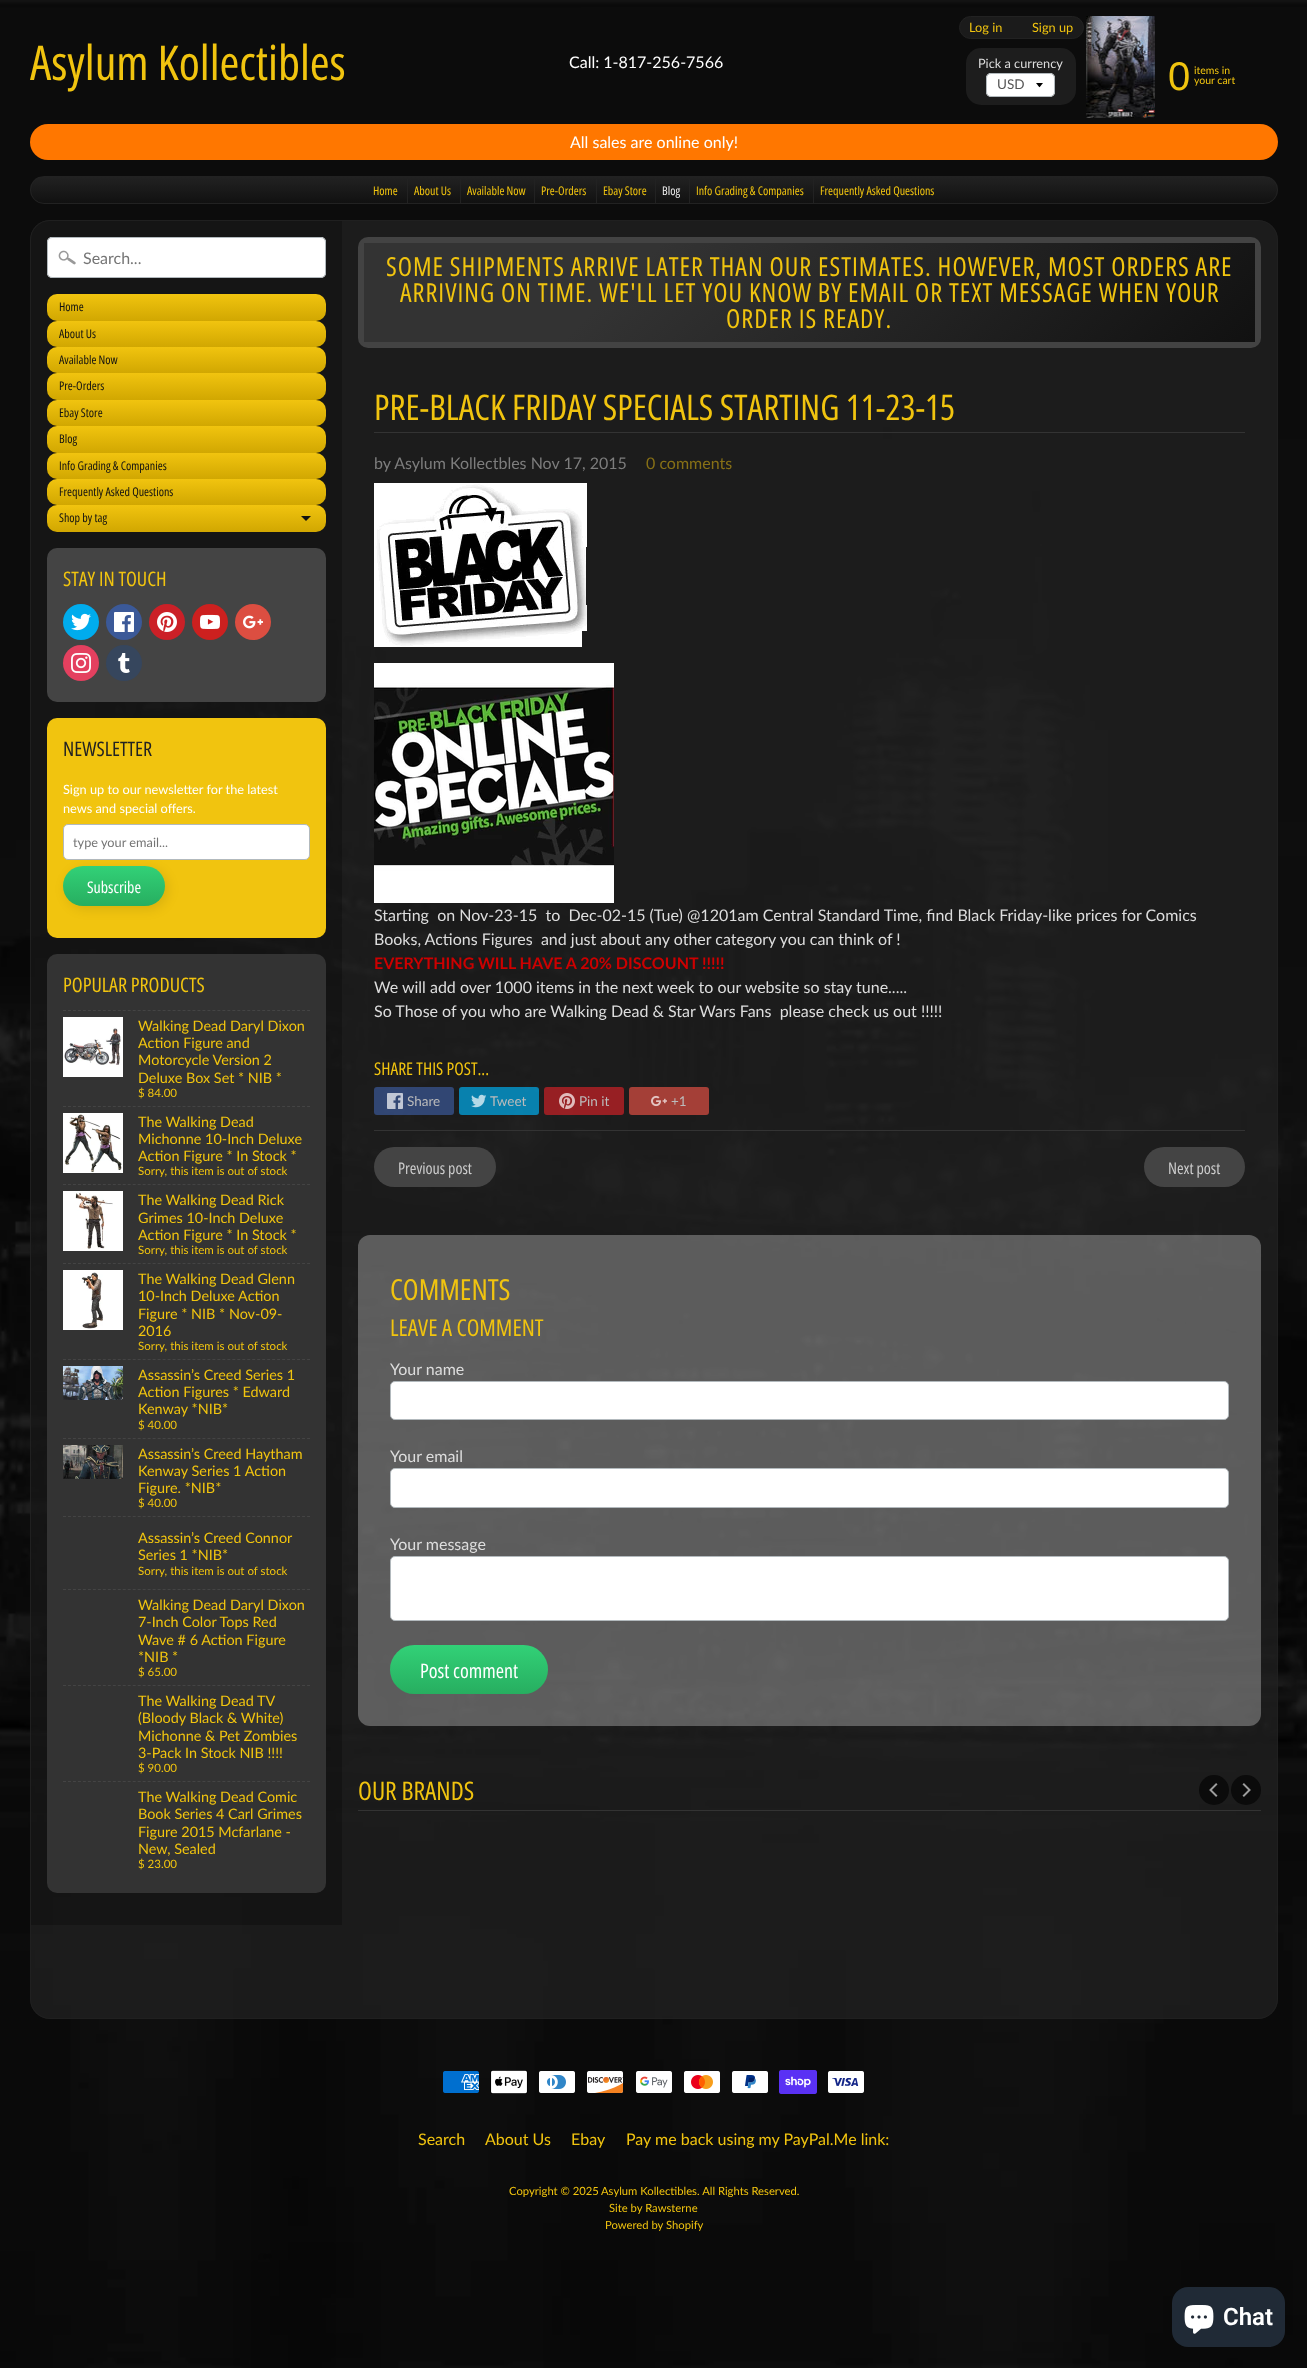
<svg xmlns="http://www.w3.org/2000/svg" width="1307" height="2368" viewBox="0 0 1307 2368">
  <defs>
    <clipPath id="clip1"><rect x="30" y="176" width="1248" height="28" rx="14"/></clipPath>
    <linearGradient id="g1" gradientUnits="userSpaceOnUse" x1="654" y1="177" x2="654" y2="203"><stop offset="0" stop-color="rgb(34,34,34)"/><stop offset="1" stop-color="rgb(17,17,17)"/></linearGradient>
    <linearGradient id="g2" gradientUnits="userSpaceOnUse" x1="187" y1="294" x2="187" y2="321"><stop offset="0" stop-color="rgb(241,196,15)"/><stop offset="1" stop-color="rgb(209,167,1)"/></linearGradient>
    <linearGradient id="g3" gradientUnits="userSpaceOnUse" x1="187" y1="321" x2="187" y2="347"><stop offset="0" stop-color="rgb(241,196,15)"/><stop offset="1" stop-color="rgb(209,167,1)"/></linearGradient>
    <linearGradient id="g4" gradientUnits="userSpaceOnUse" x1="187" y1="347" x2="187" y2="373"><stop offset="0" stop-color="rgb(241,196,15)"/><stop offset="1" stop-color="rgb(209,167,1)"/></linearGradient>
    <linearGradient id="g5" gradientUnits="userSpaceOnUse" x1="187" y1="373" x2="187" y2="400"><stop offset="0" stop-color="rgb(241,196,15)"/><stop offset="1" stop-color="rgb(209,167,1)"/></linearGradient>
    <linearGradient id="g6" gradientUnits="userSpaceOnUse" x1="187" y1="400" x2="187" y2="426"><stop offset="0" stop-color="rgb(241,196,15)"/><stop offset="1" stop-color="rgb(209,167,1)"/></linearGradient>
    <linearGradient id="g7" gradientUnits="userSpaceOnUse" x1="187" y1="426" x2="187" y2="453"><stop offset="0" stop-color="rgb(241,196,15)"/><stop offset="1" stop-color="rgb(209,167,1)"/></linearGradient>
    <linearGradient id="g8" gradientUnits="userSpaceOnUse" x1="187" y1="453" x2="187" y2="479"><stop offset="0" stop-color="rgb(241,196,15)"/><stop offset="1" stop-color="rgb(209,167,1)"/></linearGradient>
    <linearGradient id="g9" gradientUnits="userSpaceOnUse" x1="187" y1="479" x2="187" y2="505"><stop offset="0" stop-color="rgb(241,196,15)"/><stop offset="1" stop-color="rgb(209,167,1)"/></linearGradient>
    <linearGradient id="g10" gradientUnits="userSpaceOnUse" x1="187" y1="505" x2="187" y2="532"><stop offset="0" stop-color="rgb(241,196,15)"/><stop offset="1" stop-color="rgb(209,167,1)"/></linearGradient>
    <linearGradient id="g11" gradientUnits="userSpaceOnUse" x1="114" y1="866" x2="114" y2="906"><stop offset="0" stop-color="rgb(50,209,119)"/><stop offset="1" stop-color="rgb(39,174,96)"/></linearGradient>
    <linearGradient id="g12" gradientUnits="userSpaceOnUse" x1="562" y1="45" x2="1057" y2="540"><stop offset="0.3" stop-color="rgb(51,51,51)"/><stop offset="1" stop-color="rgb(17,17,17)"/></linearGradient>
    <linearGradient id="g13" gradientUnits="userSpaceOnUse" x1="469" y1="1645" x2="469" y2="1694"><stop offset="0" stop-color="rgb(50,209,119)"/><stop offset="1" stop-color="rgb(39,174,96)"/></linearGradient>
  </defs>
  <rect width="100%" height="100%" fill="rgb(255,255,255)"/>
  <image x="0" y="0" width="1307" height="2368" href="pic1.png"/>
  <rect x="959.5" y="16.5" width="124" height="22" rx="11" fill="rgb(27,27,27)" stroke="rgb(34,34,34)"/>
  <g font-family="Lato" font-size="12.75" fill="rgb(241,196,15)">
    <text x="969" y="32">Log in</text>
    <text x="1032" y="32">Sign up</text>
  </g>
  <text x="30" y="80" font-family="Open Sans Condensed" font-size="48" fill="rgb(241,196,15)">Asylum Kollectibles</text>
  <text x="569" y="68" font-family="Lato" font-size="16" fill="rgb(255,255,255)">Call: 1-817-256-7566</text>
  <image x="1086" y="16" width="69" height="102" href="pic2.png"/>
  <text x="1168" y="90" font-family="Liberation Sans" font-size="40" fill="rgb(241,196,15)">0</text>
  <g font-family="Lato" font-size="10.5" fill="rgb(241,196,15)">
    <text>
      <tspan x="1194" y="74">items in</tspan>
      <tspan x="1194" y="84">your cart</tspan>
    </text>
  </g>
  <rect x="30" y="124" width="1248" height="36" rx="18" fill="rgb(255,119,0)"/>
  <text x="570" y="148" font-family="Lato" font-size="16" fill="rgb(255,255,255)">All sales are online only!</text>
  <g clip-path="url(#clip1)">
    <rect x="30" y="177" width="1248" height="26" fill="url(#g1)"/>
  </g>
  <rect x="30.5" y="176.5" width="1247" height="27" rx="13.5" fill="none" stroke="rgb(34,34,34)"/>
  <text x="373" y="195" font-family="Open Sans Condensed" font-size="12" fill="rgb(241,196,15)">Home</text>
  <rect x="407" y="179" width="1" height="24" fill="rgb(34,34,34)"/>
  <text x="414" y="195" font-family="Open Sans Condensed" font-size="12" fill="rgb(241,196,15)">About Us</text>
  <rect x="460" y="179" width="1" height="24" fill="rgb(34,34,34)"/>
  <text x="467" y="195" font-family="Open Sans Condensed" font-size="12" fill="rgb(241,196,15)">Available Now</text>
  <rect x="534" y="179" width="1" height="24" fill="rgb(34,34,34)"/>
  <text x="541" y="195" font-family="Open Sans Condensed" font-size="12" fill="rgb(241,196,15)">Pre-Orders</text>
  <rect x="596" y="179" width="1" height="24" fill="rgb(34,34,34)"/>
  <text x="603" y="195" font-family="Open Sans Condensed" font-size="12" fill="rgb(241,196,15)">Ebay Store</text>
  <rect x="655" y="179" width="1" height="24" fill="rgb(34,34,34)"/>
  <text x="662" y="195" font-family="Open Sans Condensed" font-size="12" fill="rgb(238,238,238)">Blog</text>
  <rect x="689" y="179" width="1" height="24" fill="rgb(34,34,34)"/>
  <text x="696" y="195" font-family="Open Sans Condensed" font-size="12" fill="rgb(241,196,15)">Info Grading &amp; Companies</text>
  <rect x="813" y="179" width="1" height="24" fill="rgb(34,34,34)"/>
  <text x="820" y="195" font-family="Open Sans Condensed" font-size="12" fill="rgb(241,196,15)">Frequently Asked Questions</text>
  <rect x="966" y="48" width="110" height="57" rx="15" fill="rgb(29,29,29)"/>
  <text x="978" y="68" font-family="Lato" font-size="12.75" fill="rgb(221,221,221)">Pick a currency</text>
  <rect x="986" y="73" width="69" height="24" rx="5" fill="rgb(255,255,255)"/>
  <path d="M1036 83C1040.5 88.5 1038.5 88.5 1043 83Z" fill="rgb(0,0,0)"/>
  <rect x="986.5" y="73.5" width="68" height="23" rx="4.5" fill="none" stroke="rgb(178,185,189)"/>
  <text x="997" y="89" font-family="Lato" font-size="13.5" fill="rgb(85,85,85)">USD</text>
  <rect x="30" y="220" width="1248" height="1799" rx="20" fill="rgba(34,34,34,0.75)"/>
  <rect x="30.5" y="220.5" width="1247" height="1798" rx="19.5" fill="none" stroke="rgba(34,34,34,0.7)"/>
  <path d="M50 221H342V1925H31V240C31 229.5 39.5 221 50 221Z" fill="rgba(0,0,0,0.25)"/>
  <rect x="47" y="237" width="279" height="41" rx="5" fill="rgb(255,255,255)"/>
  <image x="58" y="250" width="18" height="15" href="pic3.png"/>
  <rect x="47.5" y="237.5" width="278" height="40" rx="4.5" fill="none" stroke="rgb(178,185,189)"/>
  <text x="83" y="264" font-family="Lato" font-size="16" fill="rgb(117,117,117)">Search...</text>
  <rect x="47" y="294" width="279" height="27" rx="10" fill="url(#g2)"/>
  <text x="59" y="311" font-family="Open Sans Condensed" font-size="12" fill="rgb(17,17,17)">Home</text>
  <rect x="47" y="321" width="279" height="26" rx="10" fill="url(#g3)"/>
  <text x="59" y="338" font-family="Open Sans Condensed" font-size="12" fill="rgb(17,17,17)">About Us</text>
  <rect x="47" y="347" width="279" height="26" rx="10" fill="url(#g4)"/>
  <text x="59" y="364" font-family="Open Sans Condensed" font-size="12" fill="rgb(17,17,17)">Available Now</text>
  <rect x="47" y="373" width="279" height="27" rx="10" fill="url(#g5)"/>
  <text x="59" y="390" font-family="Open Sans Condensed" font-size="12" fill="rgb(17,17,17)">Pre-Orders</text>
  <rect x="47" y="400" width="279" height="26" rx="10" fill="url(#g6)"/>
  <text x="59" y="417" font-family="Open Sans Condensed" font-size="12" fill="rgb(17,17,17)">Ebay Store</text>
  <rect x="47" y="426" width="279" height="27" rx="10" fill="url(#g7)"/>
  <text x="59" y="443" font-family="Open Sans Condensed" font-size="12" fill="rgb(17,17,17)">Blog</text>
  <rect x="47" y="453" width="279" height="26" rx="10" fill="url(#g8)"/>
  <text x="59" y="470" font-family="Open Sans Condensed" font-size="12" fill="rgb(17,17,17)">Info Grading &amp; Companies</text>
  <rect x="47" y="479" width="279" height="26" rx="10" fill="url(#g9)"/>
  <text x="59" y="496" font-family="Open Sans Condensed" font-size="12" fill="rgb(17,17,17)">Frequently Asked Questions</text>
  <rect x="47" y="505" width="279" height="27" rx="10" fill="url(#g10)"/>
  <text x="59" y="522" font-family="Open Sans Condensed" font-size="12" fill="rgb(17,17,17)">Shop by tag</text>
  <path d="M301 516H311L306 521Z" fill="rgb(17,17,17)"/>
  <rect x="47" y="548" width="279" height="154" rx="10" fill="rgb(68,68,68)"/>
  <text x="63" y="586" font-family="Open Sans Condensed" font-size="20" fill="rgb(241,196,15)">STAY IN TOUCH</text>
  <circle cx="81" cy="622" r="18" fill="rgb(0,172,237)"/>
  <image x="71" y="613" width="20" height="18" href="pic4.png"/>
  <circle cx="124" cy="622" r="18" fill="rgb(59,89,152)"/>
  <image x="114" y="612" width="20" height="20" href="pic5.png"/>
  <circle cx="167" cy="622" r="18" fill="rgb(203,32,39)"/>
  <image x="157" y="612" width="20" height="20" href="pic6.png"/>
  <circle cx="210" cy="622" r="18" fill="rgb(205,32,31)"/>
  <image x="200" y="614" width="20" height="15" href="pic7.png"/>
  <circle cx="253" cy="622" r="18" fill="rgb(220,78,65)"/>
  <image x="243" y="615" width="20" height="14" href="pic8.png"/>
  <circle cx="81" cy="663" r="18" fill="rgb(228,64,95)"/>
  <image x="71" y="653" width="20" height="20" href="pic9.png"/>
  <circle cx="124" cy="663" r="18" fill="rgb(54,70,93)"/>
  <image x="118" y="653" width="12" height="20" href="pic10.png"/>
  <rect x="47" y="718" width="279" height="220" rx="10" fill="rgb(241,196,15)"/>
  <text x="63" y="756" font-family="Open Sans Condensed" font-size="20" fill="rgb(34,34,34)">NEWSLETTER</text>
  <g font-family="Lato" font-size="12.75" fill="rgb(255,255,255)">
    <text>
      <tspan x="63" y="794">Sign up to our newsletter for the latest</tspan>
      <tspan x="63" y="813">news and special offers.</tspan>
    </text>
  </g>
  <rect x="63.5" y="824.5" width="246" height="35" rx="4.5" fill="rgb(255,255,255)" stroke="rgb(178,185,189)"/>
  <text x="73" y="847" font-family="Lato" font-size="12.75" fill="rgb(117,117,117)">type your email...</text>
  <rect x="66" y="869" width="102" height="40" rx="20" fill="rgba(0,0,0,0.1)" filter="blur(6px)"/>
  <rect x="63" y="866" width="102" height="40" rx="20" fill="url(#g11)"/>
  <text x="87" y="893" font-family="Open Sans Condensed" font-size="16" fill="rgb(255,255,255)">Subscribe</text>
  <rect x="47" y="954" width="279" height="939" rx="10" fill="rgb(51,51,51)"/>
  <text x="63" y="992" font-family="Open Sans Condensed" font-size="20" fill="rgb(241,196,15)">POPULAR PRODUCTS</text>
  <path d="M63 1010.5H310" fill="none" stroke="rgb(68,68,68)" stroke-dasharray="3 1.98"/>
  <image x="63" y="1017" width="60" height="60" href="pic11.png"/>
  <g font-family="Lato" font-size="14.4" fill="rgb(241,196,15)">
    <text>
      <tspan x="138" y="1031">Walking Dead Daryl Dixon</tspan>
      <tspan x="138" y="1048">Action Figure and</tspan>
      <tspan x="138" y="1065">Motorcycle Version 2</tspan>
      <tspan x="138" y="1083">Deluxe Box Set * NIB *</tspan>
    </text>
  </g>
  <text x="138" y="1097" font-family="Lato" font-size="11.5" fill="rgb(241,196,15)">$ 84.00</text>
  <path d="M63 1106.5H310" fill="none" stroke="rgb(68,68,68)" stroke-dasharray="3 1.98"/>
  <image x="63" y="1113" width="60" height="60" href="pic12.png"/>
  <g font-family="Lato" font-size="14.4" fill="rgb(241,196,15)">
    <text>
      <tspan x="138" y="1127">The Walking Dead</tspan>
      <tspan x="138" y="1144">Michonne 10-Inch Deluxe</tspan>
      <tspan x="138" y="1161">Action Figure * In Stock *</tspan>
    </text>
  </g>
  <text x="138" y="1175" font-family="Lato" font-size="11.5" fill="rgb(241,196,15)">Sorry, this item is out of stock</text>
  <path d="M63 1184.5H310" fill="none" stroke="rgb(68,68,68)" stroke-dasharray="3 1.98"/>
  <image x="63" y="1191" width="60" height="60" href="pic13.png"/>
  <g font-family="Lato" font-size="14.4" fill="rgb(241,196,15)">
    <text>
      <tspan x="138" y="1205">The Walking Dead Rick</tspan>
      <tspan x="138" y="1223">Grimes 10-Inch Deluxe</tspan>
      <tspan x="138" y="1240">Action Figure * In Stock *</tspan>
    </text>
  </g>
  <text x="138" y="1254" font-family="Lato" font-size="11.5" fill="rgb(241,196,15)">Sorry, this item is out of stock</text>
  <path d="M63 1263.5H310" fill="none" stroke="rgb(68,68,68)" stroke-dasharray="3 1.98"/>
  <image x="63" y="1270" width="60" height="60" href="pic14.png"/>
  <g font-family="Lato" font-size="14.4" fill="rgb(241,196,15)">
    <text>
      <tspan x="138" y="1284">The Walking Dead Glenn</tspan>
      <tspan x="138" y="1301">10-Inch Deluxe Action</tspan>
      <tspan x="138" y="1319">Figure * NIB * Nov-09-</tspan>
      <tspan x="138" y="1336">2016</tspan>
    </text>
  </g>
  <text x="138" y="1350" font-family="Lato" font-size="11.5" fill="rgb(241,196,15)">Sorry, this item is out of stock</text>
  <path d="M63 1359.5H310" fill="none" stroke="rgb(68,68,68)" stroke-dasharray="3 1.98"/>
  <image x="63" y="1366" width="60" height="34" href="pic15.png"/>
  <g font-family="Lato" font-size="14.4" fill="rgb(241,196,15)">
    <text>
      <tspan x="138" y="1380">Assassin’s Creed Series 1</tspan>
      <tspan x="138" y="1397">Action Figures * Edward</tspan>
      <tspan x="138" y="1414">Kenway *NIB*</tspan>
    </text>
  </g>
  <text x="138" y="1429" font-family="Lato" font-size="11.5" fill="rgb(241,196,15)">$ 40.00</text>
  <path d="M63 1438.5H310" fill="none" stroke="rgb(68,68,68)" stroke-dasharray="3 1.98"/>
  <image x="63" y="1445" width="60" height="34" href="pic16.png"/>
  <g font-family="Lato" font-size="14.4" fill="rgb(241,196,15)">
    <text>
      <tspan x="138" y="1459">Assassin’s Creed Haytham</tspan>
      <tspan x="138" y="1476">Kenway Series 1 Action</tspan>
      <tspan x="138" y="1493">Figure. *NIB*</tspan>
    </text>
  </g>
  <text x="138" y="1507" font-family="Lato" font-size="11.5" fill="rgb(241,196,15)">$ 40.00</text>
  <path d="M63 1516.5H310" fill="none" stroke="rgb(68,68,68)" stroke-dasharray="3 1.98"/>
  <g font-family="Lato" font-size="14.4" fill="rgb(241,196,15)">
    <text>
      <tspan x="138" y="1543">Assassin’s Creed Connor</tspan>
      <tspan x="138" y="1560">Series 1 *NIB*</tspan>
    </text>
  </g>
  <text x="138" y="1575" font-family="Lato" font-size="11.5" fill="rgb(241,196,15)">Sorry, this item is out of stock</text>
  <path d="M63 1589.5H310" fill="none" stroke="rgb(68,68,68)" stroke-dasharray="3 1.98"/>
  <g font-family="Lato" font-size="14.4" fill="rgb(241,196,15)">
    <text>
      <tspan x="138" y="1610">Walking Dead Daryl Dixon</tspan>
      <tspan x="138" y="1627">7-Inch Color Tops Red</tspan>
      <tspan x="138" y="1645">Wave # 6 Action Figure</tspan>
      <tspan x="138" y="1662">*NIB *</tspan>
    </text>
  </g>
  <text x="138" y="1676" font-family="Lato" font-size="11.5" fill="rgb(241,196,15)">$ 65.00</text>
  <path d="M63 1685.5H310" fill="none" stroke="rgb(68,68,68)" stroke-dasharray="3 1.98"/>
  <g font-family="Lato" font-size="14.4" fill="rgb(241,196,15)">
    <text>
      <tspan x="138" y="1706">The Walking Dead TV</tspan>
      <tspan x="138" y="1723">(Bloody Black &amp; White)</tspan>
      <tspan x="138" y="1741">Michonne &amp; Pet Zombies</tspan>
      <tspan x="138" y="1758">3-Pack In Stock NIB !!!!</tspan>
    </text>
  </g>
  <text x="138" y="1772" font-family="Lato" font-size="11.5" fill="rgb(241,196,15)">$ 90.00</text>
  <path d="M63 1781.5H310" fill="none" stroke="rgb(68,68,68)" stroke-dasharray="3 1.98"/>
  <g font-family="Lato" font-size="14.4" fill="rgb(241,196,15)">
    <text>
      <tspan x="138" y="1802">The Walking Dead Comic</tspan>
      <tspan x="138" y="1819">Book Series 4 Carl Grimes</tspan>
      <tspan x="138" y="1837">Figure 2015 Mcfarlane -</tspan>
      <tspan x="138" y="1854">New, Sealed</tspan>
    </text>
  </g>
  <text x="138" y="1868" font-family="Lato" font-size="11.5" fill="rgb(241,196,15)">$ 23.00</text>
  <rect x="358" y="237" width="903" height="111" rx="10" fill="rgb(67,67,67)"/>
  <rect x="364" y="243" width="891" height="99" fill="url(#g12)"/>
  <g font-family="Open Sans Condensed" font-size="26.15" letter-spacing="1" fill="rgb(241,196,15)">
    <text x="386" y="276">SOME SHIPMENTS ARRIVE LATER THAN OUR ESTIMATES. HOWEVER, MOST ORDERS ARE</text>
    <text x="400" y="302">ARRIVING ON TIME. WE'LL LET YOU KNOW BY EMAIL OR TEXT MESSAGE WHEN YOUR</text>
    <text x="726" y="328">ORDER IS READY.</text>
  </g>
  <rect x="374" y="432" width="871" height="1" fill="rgb(51,51,51)"/>
  <text x="374" y="420" font-family="Open Sans Condensed" font-size="35.25" fill="rgb(241,196,15)">PRE-BLACK FRIDAY SPECIALS STARTING 11-23-15</text>
  <text x="374" y="469" font-family="Lato" font-size="16" fill="rgb(125,125,125)">by Asylum Kollectbles Nov 17, 2015</text>
  <text x="646" y="469" font-family="Lato" font-size="16" fill="rgb(135,112,22)">0 comments</text>
  <image x="374" y="483" width="213" height="164" href="pic17.png"/>
  <image x="374" y="663" width="240" height="240" href="pic18.png"/>
  <g font-family="Lato" font-size="16" fill="rgb(221,221,221)">
    <text xml:space="preserve"><tspan x="374" y="921">Starting  on Nov-23-15  to  Dec-02-15 (Tue) @1201am Central Standard Time, find Black Friday-like prices for Comics</tspan><tspan x="374" y="945">Books, Actions Figures  and just about any other category you can think of !</tspan></text>
  </g>
  <text x="374" y="969" font-family="Lato" font-size="16" font-weight="bold" fill="rgb(204,0,0)">EVERYTHING WILL HAVE A 20% DISCOUNT !!!!!</text>
  <g font-family="Lato" font-size="16" fill="rgb(221,221,221)">
    <text xml:space="preserve"><tspan x="374" y="993">We will add over 1000 items in the next week to our website so stay tune.....</tspan><tspan x="374" y="1017">So Those of you who are Walking Dead &amp; Star Wars Fans  please check us out !!!!!</tspan></text>
  </g>
  <text x="374" y="1075" font-family="Open Sans Condensed" font-size="17.5" fill="rgb(241,196,15)">SHARE THIS POST...</text>
  <rect x="374" y="1087" width="80" height="28" rx="3" fill="rgba(59,89,152,0.7)"/>
  <image x="387" y="1093" width="16" height="16" href="pic19.png"/>
  <text x="407" y="1106" font-family="Lato" font-size="13.5" fill="rgb(187,187,187)">Share</text>
  <rect x="459" y="1087" width="80" height="28" rx="3" fill="rgba(0,172,237,0.7)"/>
  <image x="471" y="1094" width="15" height="14" href="pic20.png"/>
  <text x="490" y="1106" font-family="Lato" font-size="13.5" fill="rgb(187,187,187)">Tweet</text>
  <rect x="544" y="1087" width="80" height="28" rx="3" fill="rgba(204,33,39,0.7)"/>
  <image x="559" y="1093" width="16" height="16" href="pic21.png"/>
  <text x="579" y="1106" font-family="Lato" font-size="13.5" fill="rgb(187,187,187)">Pin it</text>
  <rect x="629" y="1087" width="80" height="28" rx="3" fill="rgb(164,63,55)"/>
  <image x="651" y="1095" width="16" height="12" href="pic22.png"/>
  <text x="671" y="1106" font-family="Lato" font-size="13.5" fill="rgb(187,187,187)">+1</text>
  <rect x="374" y="1130" width="871" height="1" fill="rgb(51,51,51)"/>
  <rect x="374" y="1147" width="122" height="40" rx="20" fill="rgb(68,68,68)"/>
  <text x="398" y="1174" font-family="Open Sans Condensed" font-size="16" fill="rgb(204,204,204)">Previous post</text>
  <rect x="1144" y="1147" width="101" height="40" rx="20" fill="rgb(68,68,68)"/>
  <text x="1168" y="1174" font-family="Open Sans Condensed" font-size="16" fill="rgb(204,204,204)">Next post</text>
  <rect x="358" y="1235" width="903" height="491" rx="12" fill="rgba(246,246,246,0.3)"/>
  <text x="390" y="1300" font-family="Open Sans Condensed" font-size="29" fill="rgb(241,196,15)">COMMENTS</text>
  <text x="390" y="1336" font-family="Open Sans Condensed" font-size="23.25" fill="rgb(241,196,15)">LEAVE A COMMENT</text>
  <text x="390" y="1375" font-family="Lato" font-size="16" fill="rgb(221,221,221)">Your name</text>
  <rect x="390.5" y="1381.5" width="838" height="38" rx="4.5" fill="rgb(255,255,255)" stroke="rgb(178,185,189)"/>
  <text x="390" y="1462" font-family="Lato" font-size="16" fill="rgb(221,221,221)">Your email</text>
  <rect x="390.5" y="1468.5" width="838" height="39" rx="4.5" fill="rgb(255,255,255)" stroke="rgb(178,185,189)"/>
  <text x="390" y="1550" font-family="Lato" font-size="16" fill="rgb(221,221,221)">Your message</text>
  <rect x="390.5" y="1556.5" width="838" height="64" rx="4.5" fill="rgb(255,255,255)" stroke="rgb(178,185,189)"/>
  <rect x="390" y="1645" width="158" height="49" rx="24.5" fill="url(#g13)"/>
  <text x="420" y="1678" font-family="Open Sans Condensed" font-size="20" fill="rgb(255,255,255)">Post comment</text>
  <rect x="358" y="1810" width="903" height="1" fill="rgb(51,51,51)"/>
  <text x="358" y="1800" font-family="Open Sans Condensed" font-size="25.5" fill="rgb(241,196,15)">OUR BRANDS</text>
  <circle cx="1214" cy="1790" r="15" fill="rgb(11,11,11)"/>
  <image x="1209" y="1783" width="9" height="14" href="pic23.png"/>
  <circle cx="1246" cy="1790" r="15" fill="rgb(11,11,11)"/>
  <image x="1242" y="1783" width="9" height="14" href="pic24.png"/>
  <image x="443" y="2071" width="36" height="22" href="pic25.png"/>
  <image x="490" y="2070" width="38" height="24" href="pic26.png"/>
  <image x="539" y="2071" width="36" height="22" href="pic27.png"/>
  <image x="587" y="2071" width="36" height="22" href="pic28.png"/>
  <image x="636" y="2071" width="36" height="22" href="pic29.png"/>
  <image x="684" y="2071" width="36" height="22" href="pic30.png"/>
  <image x="732" y="2071" width="36" height="22" href="pic31.png"/>
  <image x="779" y="2070" width="38" height="24" href="pic32.png"/>
  <image x="828" y="2071" width="36" height="22" href="pic33.png"/>
  <g font-family="Lato" font-size="16" fill="rgb(241,196,15)">
    <text x="418" y="2145">Search</text>
    <text x="485" y="2145">About Us</text>
    <text x="571" y="2145">Ebay</text>
    <text x="626" y="2145">Pay me back using my PayPal.Me link:</text>
  </g>
  <g font-family="Lato" font-size="11.25" fill="rgb(241,196,15)">
    <text x="509" y="2195">Copyright © 2025</text>
    <text x="601" y="2195">Asylum Kollectibles. All Rights Reserved.</text>
    <text x="609" y="2212">Site by Rawsterne</text>
    <text x="605" y="2229">Powered by Shopify</text>
  </g>
  <rect x="1172" y="2287" width="113" height="60" rx="16" fill="rgb(32,42,54)"/>
  <image x="1184" y="2305" width="30" height="29" href="pic34.png"/>
  <text x="1223" y="2325" font-family="Roboto" font-size="24" font-weight="600" fill="rgb(255,255,255)">Chat</text>
</svg>
